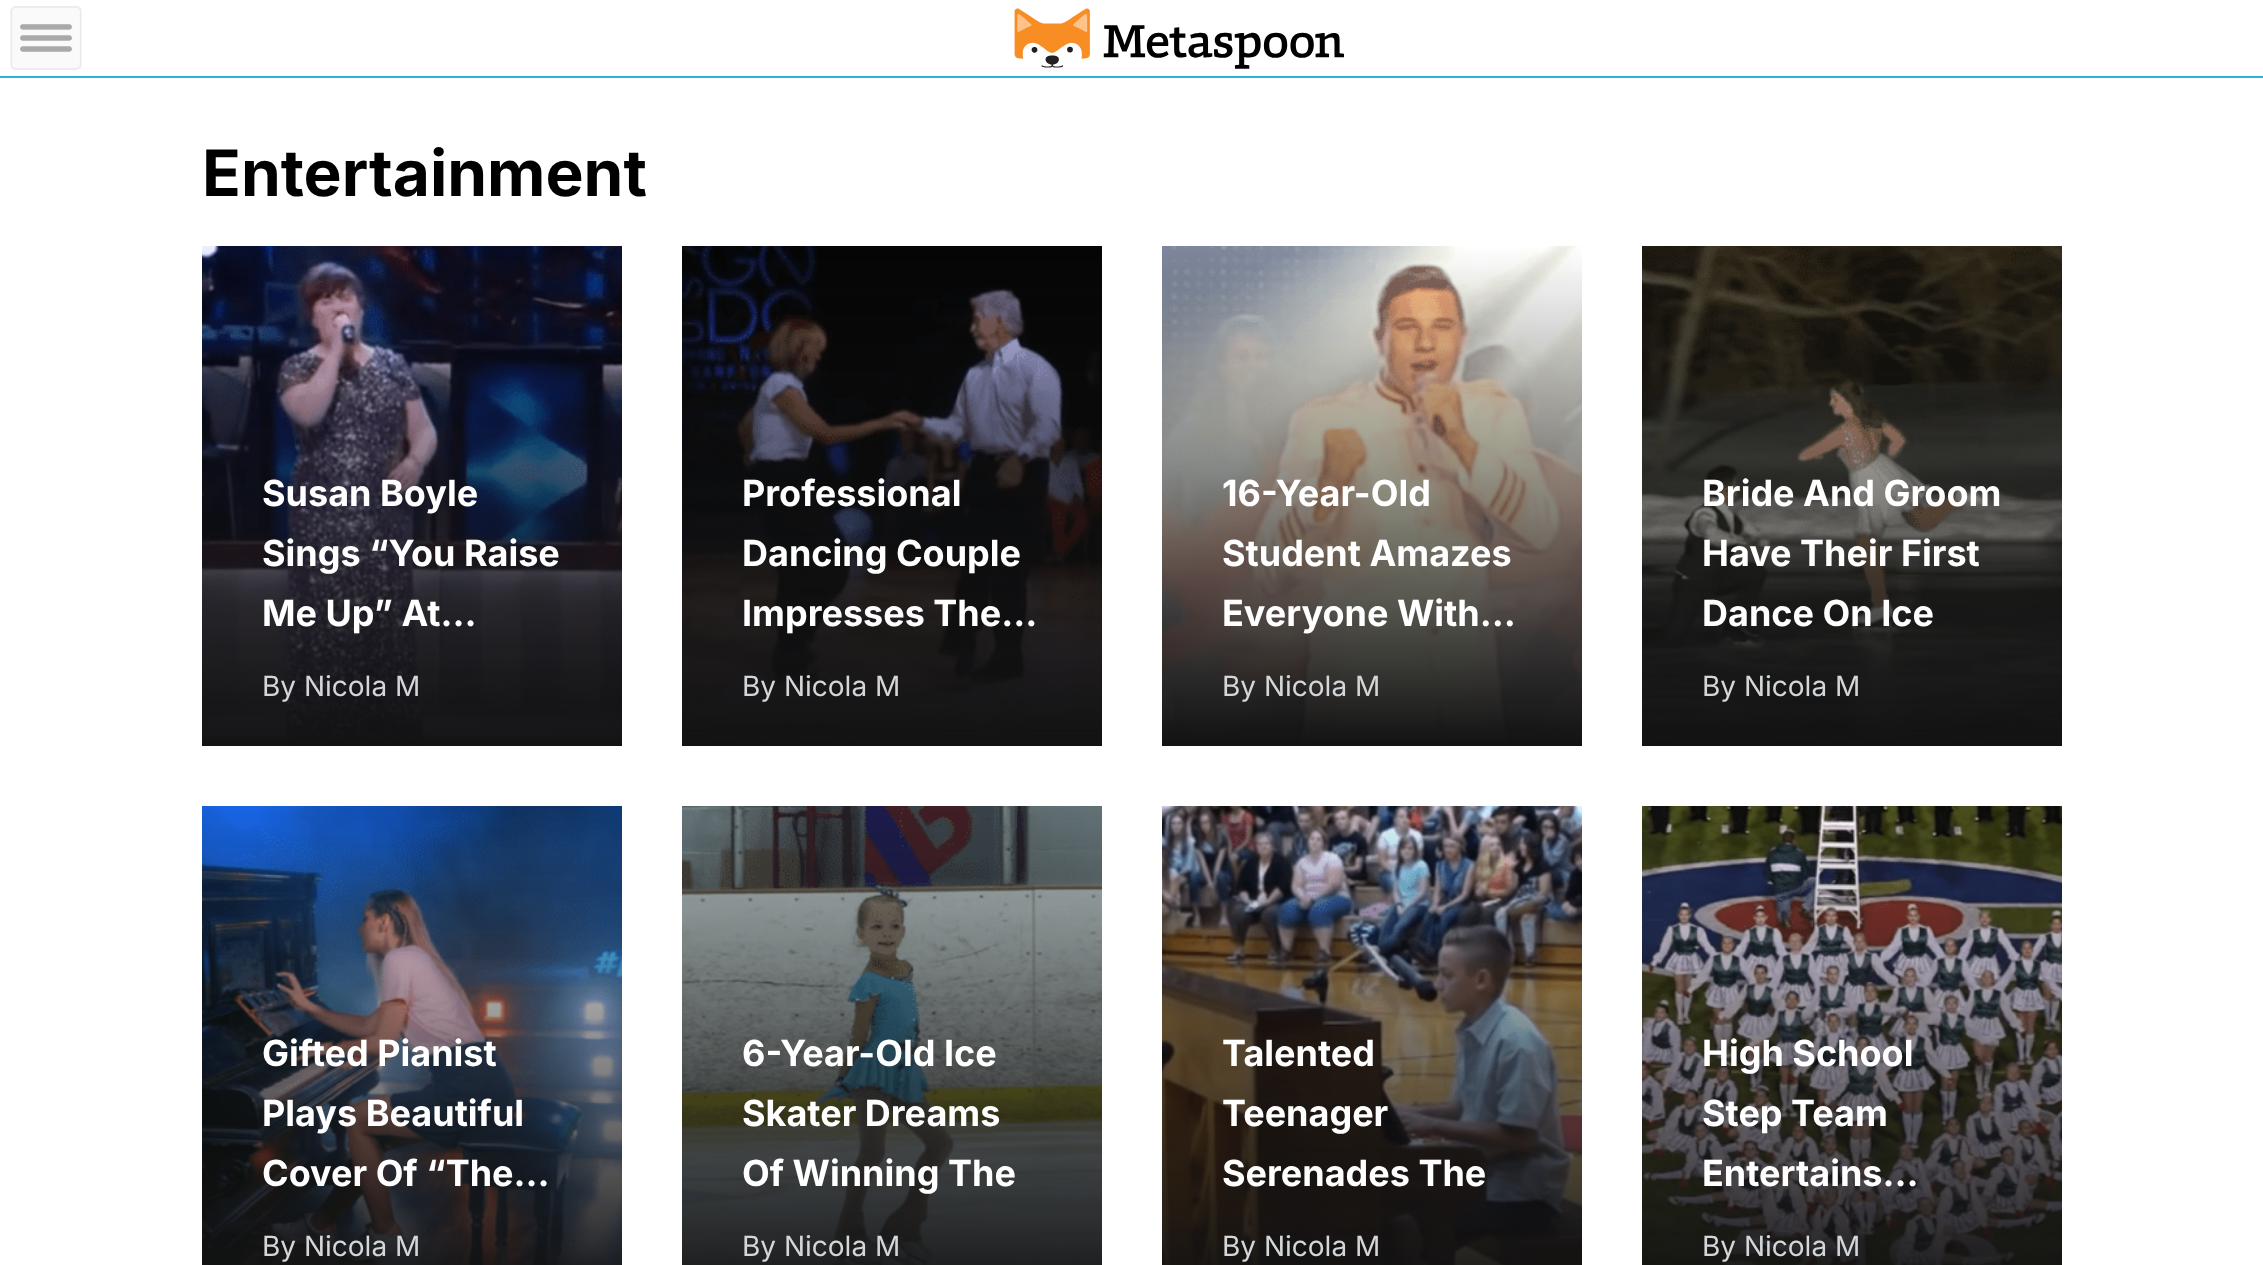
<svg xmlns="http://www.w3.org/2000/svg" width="2263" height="1265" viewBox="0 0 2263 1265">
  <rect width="100%" height="100%" fill="rgb(255,255,255)"/>
  <rect x="0" y="76" width="2263" height="2" fill="rgb(41,181,218)"/>
  <image x="10" y="6" width="72" height="64" href="pic1.png"/>
  <image x="1014" y="8" width="330" height="61" href="pic2.png"/>
  <text x="202" y="196" font-family="Inter" font-size="64" font-weight="bold" fill="rgb(0,0,0)">Entertainment</text>
  <image x="202" y="246" width="420" height="500" href="pic3.png"/>
  <g font-family="Inter" font-size="36" font-weight="bold" fill="rgb(255,255,255)">
    <text>
      <tspan x="262" y="506">Susan Boyle</tspan>
      <tspan x="262" y="566">Sings “You Raise</tspan>
      <tspan x="262" y="626">Me Up” At…</tspan>
    </text>
  </g>
  <text x="262" y="696" font-family="Inter" font-size="28" fill="rgb(211,215,218)">By Nicola M</text>
  <image x="682" y="246" width="420" height="500" href="pic4.png"/>
  <g font-family="Inter" font-size="36" font-weight="bold" fill="rgb(255,255,255)">
    <text>
      <tspan x="742" y="506">Professional</tspan>
      <tspan x="742" y="566">Dancing Couple</tspan>
      <tspan x="742" y="626">Impresses The…</tspan>
    </text>
  </g>
  <text x="742" y="696" font-family="Inter" font-size="28" fill="rgb(211,215,218)">By Nicola M</text>
  <image x="1162" y="246" width="420" height="500" href="pic5.png"/>
  <g font-family="Inter" font-size="36" font-weight="bold" fill="rgb(255,255,255)">
    <text>
      <tspan x="1222" y="506">16-Year-Old</tspan>
      <tspan x="1222" y="566">Student Amazes</tspan>
      <tspan x="1222" y="626">Everyone With…</tspan>
    </text>
  </g>
  <text x="1222" y="696" font-family="Inter" font-size="28" fill="rgb(211,215,218)">By Nicola M</text>
  <image x="1642" y="246" width="420" height="500" href="pic6.png"/>
  <g font-family="Inter" font-size="36" font-weight="bold" fill="rgb(255,255,255)">
    <text>
      <tspan x="1702" y="506">Bride And Groom</tspan>
      <tspan x="1702" y="566">Have Their First</tspan>
      <tspan x="1702" y="626">Dance On Ice</tspan>
    </text>
  </g>
  <text x="1702" y="696" font-family="Inter" font-size="28" fill="rgb(211,215,218)">By Nicola M</text>
  <image x="202" y="806" width="420" height="459" href="pic7.png"/>
  <g font-family="Inter" font-size="36" font-weight="bold" fill="rgb(255,255,255)">
    <text>
      <tspan x="262" y="1066">Gifted Pianist</tspan>
      <tspan x="262" y="1126">Plays Beautiful</tspan>
      <tspan x="262" y="1186">Cover Of “The…</tspan>
    </text>
  </g>
  <text x="262" y="1256" font-family="Inter" font-size="28" fill="rgb(211,215,218)">By Nicola M</text>
  <image x="682" y="806" width="420" height="459" href="pic8.png"/>
  <g font-family="Inter" font-size="36" font-weight="bold" fill="rgb(255,255,255)">
    <text>
      <tspan x="742" y="1066">6-Year-Old Ice</tspan>
      <tspan x="742" y="1126">Skater Dreams</tspan>
      <tspan x="742" y="1186">Of Winning The</tspan>
    </text>
  </g>
  <text x="742" y="1256" font-family="Inter" font-size="28" fill="rgb(211,215,218)">By Nicola M</text>
  <image x="1162" y="806" width="420" height="459" href="pic9.png"/>
  <g font-family="Inter" font-size="36" font-weight="bold" fill="rgb(255,255,255)">
    <text>
      <tspan x="1222" y="1066">Talented</tspan>
      <tspan x="1222" y="1126">Teenager</tspan>
      <tspan x="1222" y="1186">Serenades The</tspan>
    </text>
  </g>
  <text x="1222" y="1256" font-family="Inter" font-size="28" fill="rgb(211,215,218)">By Nicola M</text>
  <image x="1642" y="806" width="420" height="459" href="pic10.png"/>
  <g font-family="Inter" font-size="36" font-weight="bold" fill="rgb(255,255,255)">
    <text>
      <tspan x="1702" y="1066">High School</tspan>
      <tspan x="1702" y="1126">Step Team</tspan>
      <tspan x="1702" y="1186">Entertains…</tspan>
    </text>
  </g>
  <text x="1702" y="1256" font-family="Inter" font-size="28" fill="rgb(211,215,218)">By Nicola M</text>
</svg>
